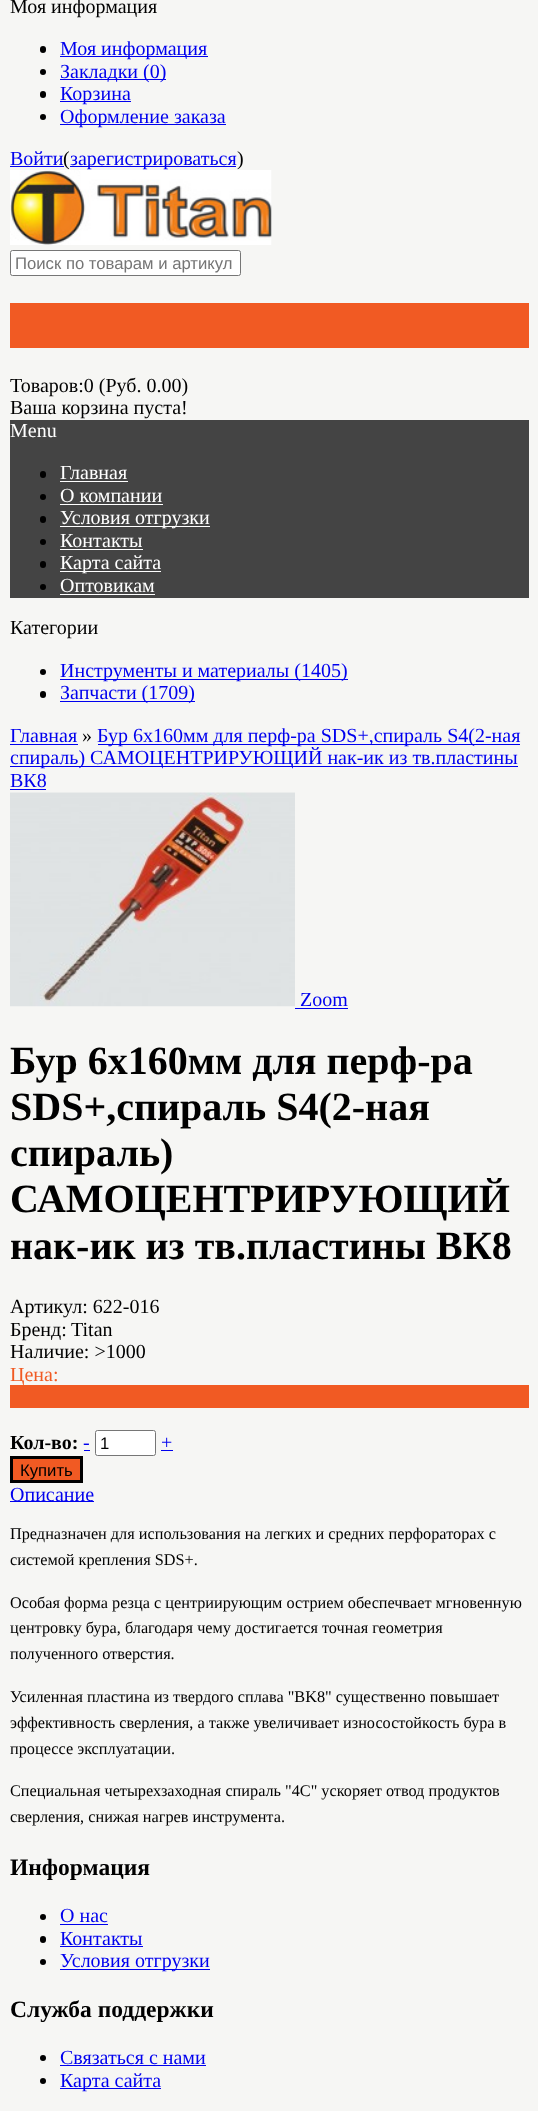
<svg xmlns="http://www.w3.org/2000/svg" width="538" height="2111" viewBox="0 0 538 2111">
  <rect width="100%" height="100%" fill="rgb(246,246,244)"/>
  <text x="10" y="13" font-family="Liberation Serif" font-size="20" fill="rgb(0,0,0)">Моя информация</text>
  <rect x="40" y="46" width="6" height="7" rx="3" fill="rgb(0,0,0)"/>
  <rect x="60" y="56" width="148" height="1" fill="rgb(0,0,238)"/>
  <text x="60" y="55" font-family="Liberation Serif" font-size="20" fill="rgb(0,0,238)">Моя информация</text>
  <circle cx="43" cy="72" r="3" fill="rgb(0,0,0)"/>
  <rect x="60" y="79" width="106" height="1" fill="rgb(0,0,238)"/>
  <text x="60" y="78" font-family="Liberation Serif" font-size="20" fill="rgb(0,0,238)">Закладки (0)</text>
  <rect x="40" y="91" width="6" height="7" rx="3" fill="rgb(0,0,0)"/>
  <rect x="60" y="101" width="71" height="1" fill="rgb(0,0,238)"/>
  <text x="60" y="100" font-family="Liberation Serif" font-size="20" fill="rgb(0,0,238)">Корзина</text>
  <circle cx="43" cy="117" r="3" fill="rgb(0,0,0)"/>
  <rect x="60" y="124" width="166" height="1" fill="rgb(0,0,238)"/>
  <g font-family="Liberation Serif" font-size="20" fill="rgb(0,0,238)">
    <text x="60" y="123">Оформление заказа</text>
    <text x="10" y="165">Войти</text>
  </g>
  <rect x="10" y="166" width="54" height="1" fill="rgb(0,0,238)"/>
  <text x="63" y="165" font-family="Liberation Serif" font-size="20" fill="rgb(0,0,0)">(</text>
  <rect x="70" y="166" width="166" height="1" fill="rgb(0,0,238)"/>
  <text x="70" y="165" font-family="Liberation Serif" font-size="20" fill="rgb(0,0,238)">зарегистрироваться</text>
  <text x="237" y="165" font-family="Liberation Serif" font-size="20" fill="rgb(0,0,0)">)</text>
  <image x="10" y="170" width="262" height="75" href="pic1.png"/>
  <rect x="10.5" y="250.5" width="230" height="25" rx="2" fill="rgb(255,255,255)" stroke="rgb(118,118,118)"/>
  <text x="15" y="269" font-family="Liberation Sans" font-size="16.7" fill="rgb(117,117,117)">Поиск по товарам и артикул</text>
  <rect x="10" y="303" width="519" height="45" fill="rgb(241,90,35)"/>
  <g font-family="Liberation Serif" font-size="20" fill="rgb(0,0,0)">
    <text>
      <tspan x="10" y="392">Товаров:0 (Руб. 0.00)</tspan>
      <tspan x="10" y="414">Ваша корзина пуста!</tspan>
    </text>
  </g>
  <rect x="10" y="420" width="519" height="178" fill="rgb(68,68,68)"/>
  <text x="10" y="437" font-family="Liberation Serif" font-size="20" fill="rgb(255,255,255)">Menu</text>
  <rect x="40" y="471" width="6" height="7" rx="3" fill="rgb(0,0,0)"/>
  <text x="60" y="479" font-family="Liberation Serif" font-size="20" fill="rgb(255,255,255)">Главная</text>
  <rect x="60" y="481" width="68" height="1" fill="rgb(255,255,255)"/>
  <circle cx="43" cy="497" r="3" fill="rgb(0,0,0)"/>
  <text x="60" y="502" font-family="Liberation Serif" font-size="20" fill="rgb(255,255,255)">О компании</text>
  <rect x="60" y="504" width="103" height="1" fill="rgb(255,255,255)"/>
  <rect x="40" y="516" width="6" height="7" rx="3" fill="rgb(0,0,0)"/>
  <rect x="60" y="526" width="150" height="1" fill="rgb(255,255,255)"/>
  <text x="60" y="524" font-family="Liberation Serif" font-size="20" fill="rgb(255,255,255)">Условия отгрузки</text>
  <circle cx="43" cy="542" r="3" fill="rgb(0,0,0)"/>
  <text x="60" y="547" font-family="Liberation Serif" font-size="20" fill="rgb(255,255,255)">Контакты</text>
  <rect x="60" y="549" width="83" height="1" fill="rgb(255,255,255)"/>
  <rect x="40" y="561" width="6" height="7" rx="3" fill="rgb(0,0,0)"/>
  <rect x="60" y="571" width="101" height="1" fill="rgb(255,255,255)"/>
  <text x="60" y="569" font-family="Liberation Serif" font-size="20" fill="rgb(255,255,255)">Карта сайта</text>
  <circle cx="43" cy="587" r="3" fill="rgb(0,0,0)"/>
  <text x="60" y="592" font-family="Liberation Serif" font-size="20" fill="rgb(255,255,255)">Оптовикам</text>
  <rect x="60" y="594" width="95" height="1" fill="rgb(255,255,255)"/>
  <text x="10" y="634" font-family="Liberation Serif" font-size="20" fill="rgb(0,0,0)">Категории</text>
  <circle cx="43" cy="672" r="3" fill="rgb(0,0,0)"/>
  <rect x="60" y="679" width="288" height="1" fill="rgb(0,0,238)"/>
  <text x="60" y="677" font-family="Liberation Serif" font-size="20" fill="rgb(0,0,238)">Инструменты и материалы (1405)</text>
  <rect x="40" y="691" width="6" height="7" rx="3" fill="rgb(0,0,0)"/>
  <rect x="60" y="701" width="135" height="1" fill="rgb(0,0,238)"/>
  <g font-family="Liberation Serif" font-size="20" fill="rgb(0,0,238)">
    <text x="60" y="699">Запчасти (1709)</text>
    <text x="10" y="742">Главная</text>
  </g>
  <rect x="10" y="744" width="68" height="1" fill="rgb(0,0,238)"/>
  <text x="82" y="742" font-family="Liberation Serif" font-size="20" fill="rgb(0,0,0)">»</text>
  <rect x="98" y="744" width="422" height="1" fill="rgb(0,0,238)"/>
  <text x="97" y="742" font-family="Liberation Serif" font-size="20" fill="rgb(0,0,238)">Бур 6х160мм для перф-ра SDS+,спираль S4(2-ная</text>
  <rect x="10" y="766" width="508" height="1" fill="rgb(0,0,238)"/>
  <g font-family="Liberation Serif" font-size="20" fill="rgb(0,0,238)">
    <text>
      <tspan x="10" y="764">спираль) САМОЦЕНТРИРУЮЩИЙ нак-ик из тв.пластины</tspan>
      <tspan x="10" y="787">ВК8</tspan>
    </text>
  </g>
  <rect x="10" y="789" width="36" height="1" fill="rgb(0,0,238)"/>
  <image x="10" y="792" width="285" height="215" href="pic2.png"/>
  <text x="300" y="1006" font-family="Liberation Serif" font-size="20" fill="rgb(0,0,238)">Zoom</text>
  <rect x="295" y="1008" width="53" height="1" fill="rgb(0,0,238)"/>
  <g font-family="Liberation Serif" font-size="40" font-weight="bold" fill="rgb(0,0,0)">
    <text>
      <tspan x="10" y="1074">Бур 6х160мм для перф-ра</tspan>
      <tspan x="10" y="1120">SDS+,спираль S4(2-ная</tspan>
      <tspan x="10" y="1166">спираль)</tspan>
      <tspan x="10" y="1212">САМОЦЕНТРИРУЮЩИЙ</tspan>
      <tspan x="10" y="1259">нак-ик из тв.пластины ВК8</tspan>
    </text>
  </g>
  <g font-family="Liberation Serif" font-size="20" fill="rgb(0,0,0)">
    <text>
      <tspan x="10" y="1313">Артикул: 622-016</tspan>
      <tspan x="10" y="1336">Бренд:</tspan>
    </text>
    <text x="71" y="1336">Titan</text>
    <text x="10" y="1358">Наличие: &gt;1000</text>
  </g>
  <rect x="10" y="1385" width="519" height="23" fill="rgb(241,90,35)"/>
  <text x="10" y="1381" font-family="Liberation Serif" font-size="20" fill="rgb(241,90,35)">Цена:</text>
  <text x="10" y="1449" font-family="Liberation Serif" font-size="20" font-weight="bold" fill="rgb(0,0,0)">Кол-во:</text>
  <text x="83" y="1449" font-family="Liberation Serif" font-size="20" fill="rgb(0,0,238)">-</text>
  <rect x="84" y="1450" width="6" height="1" fill="rgb(0,0,238)"/>
  <rect x="95.5" y="1430.5" width="60" height="25" rx="2" fill="rgb(255,255,255)" stroke="rgb(118,118,118)"/>
  <text x="100" y="1449" font-family="Liberation Sans" font-size="16.7" fill="rgb(0,0,0)">1</text>
  <text x="161" y="1449" font-family="Liberation Serif" font-size="20" fill="rgb(0,0,238)">+</text>
  <rect x="161" y="1450" width="12" height="1" fill="rgb(0,0,238)"/>
  <rect x="11.5" y="1457.5" width="70" height="24" fill="rgb(241,90,35)" stroke="rgb(0,0,0)" stroke-width="3"/>
  <text x="20" y="1476" font-family="Liberation Sans" font-size="16.7" fill="rgb(0,0,0)">Купить</text>
  <rect x="10" y="1501" width="84" height="1" fill="rgb(0,0,238)"/>
  <text x="10" y="1501" font-family="Liberation Serif" font-size="20" fill="rgb(0,0,238)">Описание</text>
  <g font-family="Liberation Serif" font-size="16.25" fill="rgb(0,0,0)">
    <text>
      <tspan x="10" y="1539">Предназначен для использования на легких и средних перфораторах с</tspan>
      <tspan x="10" y="1565">системой крепления SDS+.</tspan>
    </text>
    <text>
      <tspan x="10" y="1608">Особая форма резца с центриирующим острием обеспечвает мгновенную</tspan>
      <tspan x="10" y="1633">центровку бура, благодаря чему достигается точная геометрия</tspan>
      <tspan x="10" y="1659">полученного отверстия.</tspan>
    </text>
    <text>
      <tspan x="10" y="1702">Усиленная пластина из твердого сплава "BK8" существенно повышает</tspan>
      <tspan x="10" y="1728">эффективность сверления, а также увеличивает износостойкость бура в</tspan>
      <tspan x="10" y="1754">процессе эксплуатации.</tspan>
    </text>
    <text>
      <tspan x="10" y="1796">Специальная четырехзаходная спираль "4С" ускоряет отвод продуктов</tspan>
      <tspan x="10" y="1822">сверления, снижая нагрев инструмента.</tspan>
    </text>
  </g>
  <text x="10" y="1875" font-family="Liberation Serif" font-size="23.5" font-weight="bold" fill="rgb(0,0,0)">Информация</text>
  <circle cx="43" cy="1917" r="3" fill="rgb(0,0,0)"/>
  <text x="60" y="1922" font-family="Liberation Serif" font-size="20" fill="rgb(0,0,238)">О нас</text>
  <rect x="60" y="1924" width="48" height="1" fill="rgb(0,0,238)"/>
  <rect x="40" y="1936" width="6" height="7" rx="3" fill="rgb(0,0,0)"/>
  <text x="60" y="1945" font-family="Liberation Serif" font-size="20" fill="rgb(0,0,238)">Контакты</text>
  <rect x="60" y="1946" width="83" height="1" fill="rgb(0,0,238)"/>
  <circle cx="43" cy="1962" r="3" fill="rgb(0,0,0)"/>
  <rect x="60" y="1969" width="150" height="1" fill="rgb(0,0,238)"/>
  <text x="60" y="1967" font-family="Liberation Serif" font-size="20" fill="rgb(0,0,238)">Условия отгрузки</text>
  <text x="10" y="2017" font-family="Liberation Serif" font-size="23.5" font-weight="bold" fill="rgb(0,0,0)">Служба поддержки</text>
  <circle cx="43" cy="2058" r="3" fill="rgb(0,0,0)"/>
  <text x="60" y="2064" font-family="Liberation Serif" font-size="20" fill="rgb(0,0,238)">Связаться с нами</text>
  <rect x="60" y="2065" width="146" height="1" fill="rgb(0,0,238)"/>
  <circle cx="43" cy="2081" r="3" fill="rgb(0,0,0)"/>
  <rect x="60" y="2088" width="101" height="1" fill="rgb(0,0,238)"/>
  <text x="60" y="2087" font-family="Liberation Serif" font-size="20" fill="rgb(0,0,238)">Карта сайта</text>
</svg>
